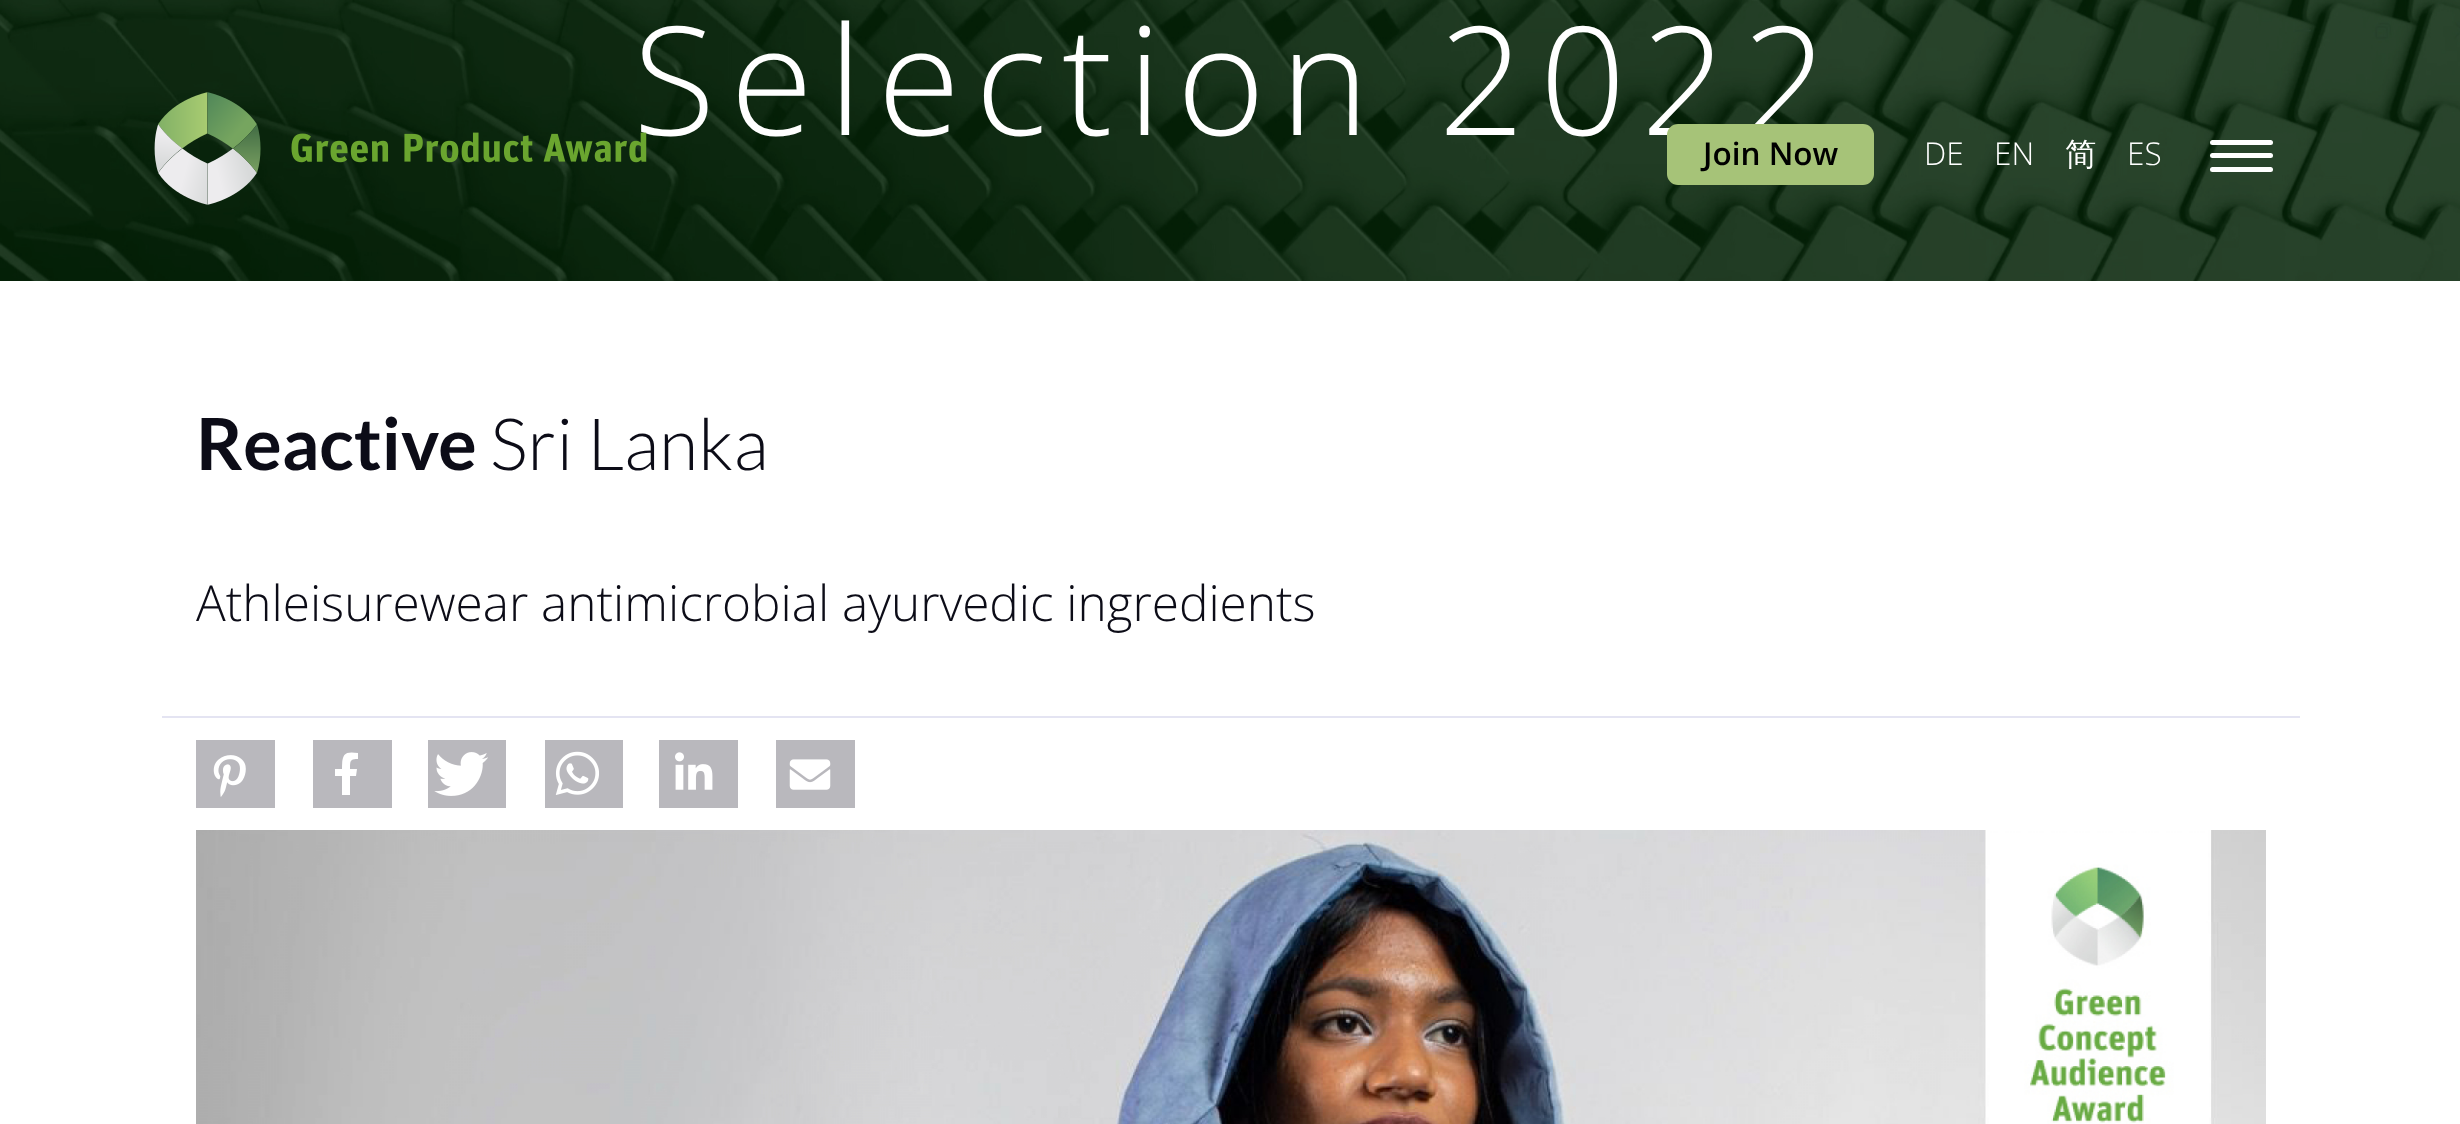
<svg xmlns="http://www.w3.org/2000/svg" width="2460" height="1124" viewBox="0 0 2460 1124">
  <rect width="100%" height="100%" fill="rgb(255,255,255)"/>
  <image x="0" y="0" width="2460" height="281" href="pic1.png"/>
  <text x="633" y="135" font-family="Open Sans" font-size="150.75" font-weight="300" letter-spacing="15.1" fill="rgb(255,255,255)">Selection 2022</text>
  <image x="154" y="92" width="493" height="113" href="pic2.png"/>
  <rect x="1667" y="124" width="207" height="61" rx="11" fill="rgb(166,195,120)"/>
  <text x="1703" y="165" font-family="Open Sans" font-size="31.5" font-weight="600" fill="rgb(0,0,0)">Join Now</text>
  <g font-family="Open Sans" font-size="31.5" font-weight="300" fill="rgb(255,255,255)">
    <text x="1924" y="165">DE</text>
    <text x="1994" y="165">EN</text>
  </g>
  <text x="2065" y="165" font-family="WenQuanYi Zen Hei" font-size="31.5" font-weight="500" fill="rgb(255,255,255)">简</text>
  <text x="2127" y="165" font-family="Open Sans" font-size="31.5" font-weight="300" fill="rgb(255,255,255)">ES</text>
  <rect x="2210" y="140" width="63" height="5" rx="2.5" fill="rgb(255,255,255)"/>
  <rect x="2210" y="153" width="63" height="5" rx="2.5" fill="rgb(255,255,255)"/>
  <rect x="2210" y="167" width="63" height="5" rx="2.5" fill="rgb(255,255,255)"/>
  <text x="196" y="470" font-family="Lato" font-size="72" font-weight="bold" fill="rgb(12,12,23)">Reactive</text>
  <text x="490" y="470" font-family="Lato" font-size="72" font-weight="300" fill="rgb(12,12,23)">Sri Lanka</text>
  <text x="196" y="621" font-family="Open Sans" font-size="49.5" font-weight="300" fill="rgb(12,12,23)">Athleisurewear antimicrobial ayurvedic ingredients</text>
  <rect x="162" y="716" width="2138" height="2" fill="rgb(228,228,242)"/>
  <rect x="196" y="740" width="79" height="68" fill="rgb(185,184,189)"/>
  <image x="213" y="755" width="33" height="42" href="pic3.png"/>
  <rect x="313" y="740" width="79" height="68" fill="rgb(185,184,189)"/>
  <path d="M356 776H350V795H342V776H335V769H342C342 754 344 751 358 753V759C350 759 350 761 350 769H357Z" fill="rgb(255,255,255)"/>
  <rect x="428" y="740" width="78" height="68" fill="rgb(185,184,189)"/>
  <image x="434" y="752" width="54" height="44" href="pic4.png"/>
  <rect x="545" y="740" width="78" height="68" fill="rgb(185,184,189)"/>
  <image x="555" y="751" width="44" height="44" href="pic5.png"/>
  <rect x="659" y="740" width="79" height="68" fill="rgb(185,184,189)"/>
  <image x="675" y="752" width="38" height="38" href="pic6.png"/>
  <rect x="776" y="740" width="79" height="68" fill="rgb(185,184,189)"/>
  <image x="789" y="759" width="42" height="31" href="pic7.png"/>
  <image x="196" y="830" width="2070" height="294" href="pic8.png"/>
</svg>
